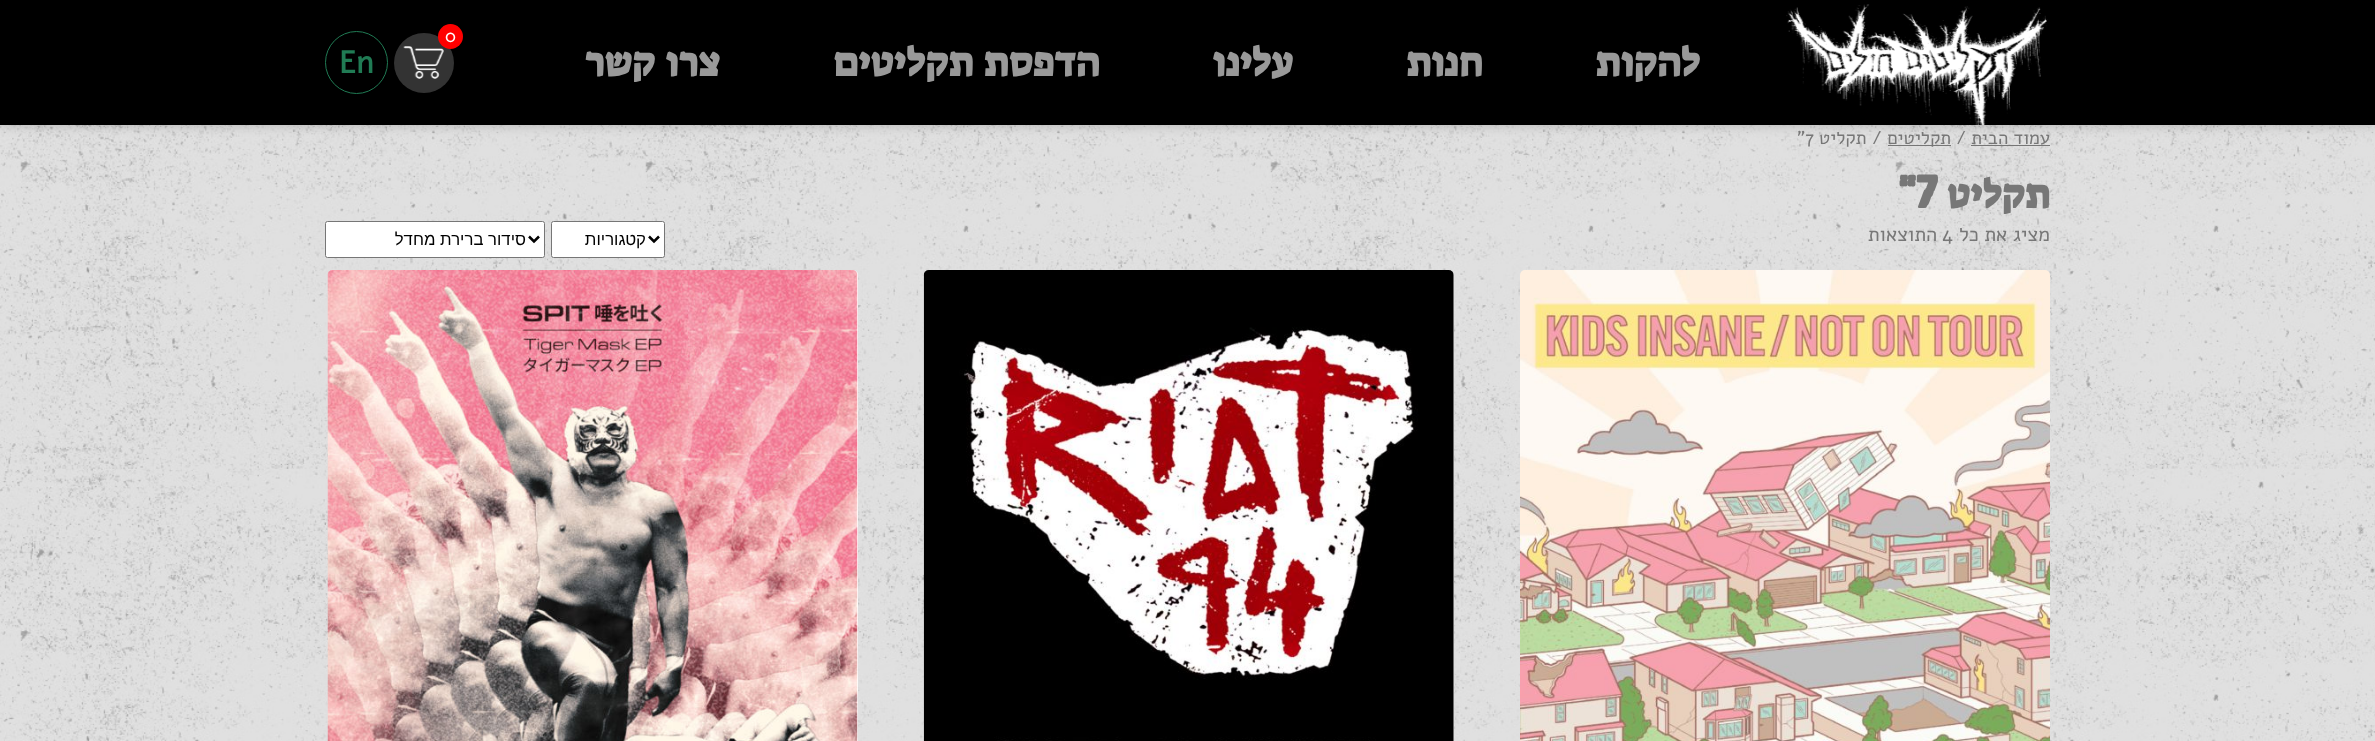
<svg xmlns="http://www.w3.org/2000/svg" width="2375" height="741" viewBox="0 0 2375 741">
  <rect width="100%" height="100%" fill="rgb(255,255,255)"/>
  <image x="0" y="125" width="2375" height="616" href="pic1.png"/>
  <rect x="0" y="0" width="2375" height="125" fill="rgba(0,0,0,0.2)" filter="blur(6px)"/>
  <rect x="0" y="0" width="2375" height="125" fill="rgb(0,0,0)"/>
  <image x="1786" y="4" width="262" height="121" href="pic2.png"/>
  <circle cx="424" cy="63" r="30" fill="rgb(51,51,51)"/>
  <image x="403" y="46" width="41" height="33" href="pic3.png"/>
  <circle cx="450.5" cy="36.5" r="12.5" fill="rgb(255,0,0)"/>
  <text x="445" y="42" font-family="Alef" font-size="18" fill="rgb(255,255,255)">0</text>
  <g font-family="Suez One" font-size="40" font-weight="bold" direction="rtl" fill="rgb(153,153,153)">
    <text x="1700" y="76">להקות</text>
    <text x="1483" y="76">חנות</text>
    <text x="1293" y="76">עלינו</text>
    <text x="1100" y="76" word-spacing="2">הדפסת תקליטים</text>
    <text x="720" y="76" word-spacing="2">צרו קשר</text>
  </g>
  <circle cx="356.5" cy="62.5" r="31" fill="none" stroke="rgb(32,123,84)"/>
  <text x="339" y="73" font-family="Alef" font-size="31" font-weight="bold" fill="rgb(32,123,84)">En</text>
  <text x="2050" y="144" font-family="Alef" font-size="18.5" direction="rtl" fill="rgb(119,119,119)">עמוד הבית</text>
  <rect x="1971" y="145" width="79" height="1" fill="rgb(118,118,118)"/>
  <text x="1956" y="144" font-family="Alef" font-size="18.5" fill="rgb(119,119,119)">/</text>
  <rect x="1888" y="145" width="63" height="1" fill="rgb(118,118,118)"/>
  <g font-family="Alef" font-size="18.5" direction="rtl" fill="rgb(119,119,119)">
    <text x="1951" y="144">תקליטים</text>
    <text x="1882" y="144">/ תקליט</text>
  </g>
  <text x="1797" y="144" font-family="Alef" font-size="18.5" fill="rgb(119,119,119)">"7</text>
  <text x="2050" y="208" font-family="Suez One" font-size="40" font-weight="bold" direction="rtl" fill="rgb(119,119,119)">תקליט</text>
  <text x="1899" y="208" font-family="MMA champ" font-size="40" font-weight="bold" fill="rgb(119,119,119)">"7</text>
  <text x="2050" y="241" font-family="Alef" font-size="20" direction="rtl" fill="rgb(119,119,119)">מציג את כל</text>
  <text x="1942" y="241" font-family="Alef" font-size="20" fill="rgb(119,119,119)">4</text>
  <text x="1937" y="241" font-family="Alef" font-size="20" direction="rtl" fill="rgb(119,119,119)">התוצאות</text>
  <rect x="551.5" y="221.5" width="113" height="36" rx="2" fill="rgb(255,255,255)" stroke="rgb(118,118,118)"/>
  <path d="M649 236.5L654 241.5L659 236.5" fill="none" stroke="rgb(0,0,0)" stroke-width="2.5"/>
  <text x="646" y="245" font-family="Liberation Sans" font-size="16.75" direction="rtl" fill="rgb(0,0,0)">קטגוריות</text>
  <rect x="325.5" y="221.5" width="219" height="36" rx="2" fill="rgb(255,255,255)" stroke="rgb(118,118,118)"/>
  <path d="M529 236.5L534 241.5L539 236.5" fill="none" stroke="rgb(0,0,0)" stroke-width="2.5"/>
  <text x="526" y="245" font-family="Liberation Sans" font-size="16.75" direction="rtl" fill="rgb(0,0,0)">סידור ברירת מחדל</text>
  <image x="1520" y="270" width="530" height="471" href="pic4.png"/>
  <rect x="924" y="270" width="530" height="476" rx="5" fill="rgb(255,255,255)"/>
  <image x="923" y="270" width="531" height="471" href="pic5.png"/>
  <rect x="328" y="270" width="530" height="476" rx="5" fill="rgb(255,255,255)"/>
  <image x="327" y="270" width="531" height="471" href="pic6.png"/>
</svg>
